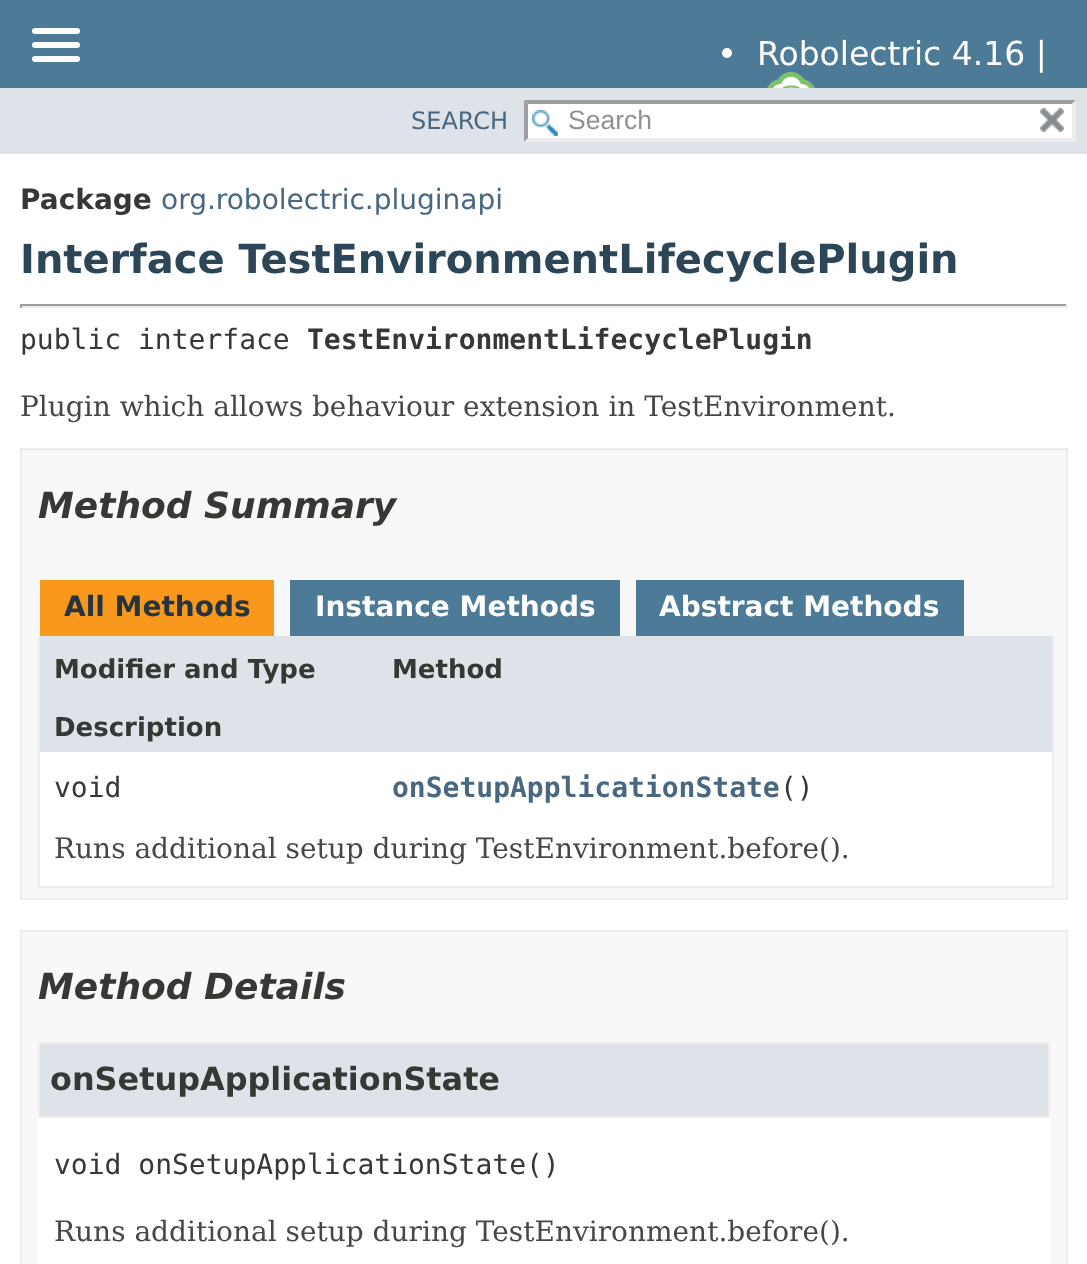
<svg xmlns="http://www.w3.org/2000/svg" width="1087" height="1264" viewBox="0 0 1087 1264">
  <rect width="100%" height="100%" fill="rgb(255,255,255)"/>
  <rect x="0" y="0" width="1087" height="88" fill="rgb(77,122,151)"/>
  <rect x="32" y="28" width="48" height="6" rx="3" fill="rgb(255,255,255)"/>
  <rect x="32" y="42" width="48" height="6" rx="3" fill="rgb(255,255,255)"/>
  <rect x="32" y="56" width="48" height="6" rx="3" fill="rgb(255,255,255)"/>
  <circle cx="727" cy="53" r="5" fill="rgb(255,255,255)"/>
  <text x="757" y="65" font-family="DejaVu Sans" font-size="33" fill="rgb(255,255,255)">Robolectric 4.16 |</text>
  <image x="767" y="72" width="48" height="16" href="pic1.png"/>
  <rect x="0" y="88" width="1087" height="66" fill="rgb(222,227,233)"/>
  <text x="411" y="129" font-family="DejaVu Sans" font-size="24" fill="rgb(74,103,130)">SEARCH</text>
  <rect x="524" y="100" width="552" height="42" fill="rgb(255,255,255)"/>
  <image x="532" y="110" width="26" height="26" href="pic2.png"/>
  <path d="M524 100H1076L1072 104H528Z" fill="rgb(158,158,158)"/>
  <path d="M1076 100V142L1072 138V104Z" fill="rgb(237,237,237)"/>
  <path d="M1076 142H524L528 138H1072Z" fill="rgb(237,237,237)"/>
  <path d="M524 142V100L528 104V138Z" fill="rgb(158,158,158)"/>
  <text x="568" y="129" font-family="Liberation Sans" font-size="26.5" fill="rgb(144,144,144)">Search</text>
  <image x="1040" y="108" width="24" height="24" href="pic3.png"/>
  <text x="20" y="209" font-family="DejaVu Sans" font-size="28" font-weight="bold" fill="rgb(53,56,51)">Package</text>
  <text x="161" y="209" font-family="DejaVu Sans" font-size="28" fill="rgb(74,103,130)">org.robolectric.pluginapi</text>
  <text x="20" y="273" font-family="DejaVu Sans" font-size="40" font-weight="bold" fill="rgb(44,69,87)">Interface TestEnvironmentLifecyclePlugin</text>
  <rect x="20" y="304" width="1048" height="2" fill="rgb(159,159,159)"/>
  <rect x="1066" y="304" width="2" height="4" fill="rgb(238,238,238)"/>
  <rect x="20" y="306" width="1048" height="2" fill="rgb(238,238,238)"/>
  <rect x="20" y="304" width="2" height="4" fill="rgb(159,159,159)"/>
  <text x="20" y="349" font-family="DejaVu Sans Mono" font-size="28" fill="rgb(53,56,51)">public interface</text>
  <text x="307" y="349" font-family="DejaVu Sans Mono" font-size="28" font-weight="bold" fill="rgb(53,56,51)">TestEnvironmentLifecyclePlugin</text>
  <text x="20" y="416" font-family="DejaVu Serif" font-size="28" fill="rgb(71,71,71)">Plugin which allows behaviour extension in TestEnvironment.</text>
  <rect x="21" y="449" width="1046" height="450" fill="rgb(248,248,248)" stroke="rgb(237,237,237)" stroke-width="2"/>
  <text x="38" y="518" font-family="DejaVu Sans" font-size="36" font-weight="bold" font-style="italic" fill="rgb(53,56,51)">Method Summary</text>
  <rect x="40" y="580" width="234" height="56" fill="rgb(248,152,29)"/>
  <text x="64" y="616" font-family="DejaVu Sans" font-size="28" font-weight="bold" fill="rgb(37,52,65)">All Methods</text>
  <rect x="290" y="580" width="330" height="56" fill="rgb(77,122,151)"/>
  <text x="315" y="616" font-family="DejaVu Sans" font-size="28" font-weight="bold" fill="rgb(255,255,255)">Instance Methods</text>
  <rect x="636" y="580" width="328" height="56" fill="rgb(77,122,151)"/>
  <text x="659" y="616" font-family="DejaVu Sans" font-size="28" font-weight="bold" fill="rgb(255,255,255)">Abstract Methods</text>
  <rect x="1052" y="636" width="2" height="252" fill="rgb(237,237,237)"/>
  <rect x="38" y="886" width="1016" height="2" fill="rgb(237,237,237)"/>
  <rect x="38" y="636" width="2" height="252" fill="rgb(237,237,237)"/>
  <rect x="40" y="636" width="1012" height="116" fill="rgb(222,227,233)"/>
  <g font-family="DejaVu Sans" font-size="26" font-weight="bold" fill="rgb(53,56,51)">
    <text x="54" y="678">Modifier and Type</text>
    <text x="392" y="678">Method</text>
    <text x="54" y="736">Description</text>
  </g>
  <rect x="40" y="752" width="1012" height="134" fill="rgb(255,255,255)"/>
  <text x="54" y="797" font-family="DejaVu Sans Mono" font-size="28" fill="rgb(53,56,51)">void</text>
  <text x="392" y="797" font-family="DejaVu Sans Mono" font-size="28" font-weight="bold" fill="rgb(74,103,130)">onSetupApplicationState</text>
  <text x="780" y="797" font-family="DejaVu Sans Mono" font-size="28" fill="rgb(53,56,51)">()</text>
  <text x="54" y="858" font-family="DejaVu Serif" font-size="28" fill="rgb(71,71,71)">Runs additional setup during TestEnvironment.before().</text>
  <rect x="21" y="931" width="1046" height="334" fill="rgb(248,248,248)" stroke="rgb(237,237,237)" stroke-width="2"/>
  <text x="38" y="999" font-family="DejaVu Sans" font-size="36" font-weight="bold" font-style="italic" fill="rgb(53,56,51)">Method Details</text>
  <rect x="38" y="1118" width="1012" height="146" fill="rgb(255,255,255)"/>
  <rect x="39" y="1043" width="1010" height="74" fill="rgb(222,227,233)" stroke="rgb(237,237,237)" stroke-width="2"/>
  <text x="50" y="1090" font-family="DejaVu Sans" font-size="31.9" font-weight="bold" fill="rgb(53,56,51)">onSetupApplicationState</text>
  <text x="54" y="1174" font-family="DejaVu Sans Mono" font-size="28" fill="rgb(53,56,51)">void onSetupApplicationState()</text>
  <text x="54" y="1241" font-family="DejaVu Serif" font-size="28" fill="rgb(71,71,71)">Runs additional setup during TestEnvironment.before().</text>
</svg>
